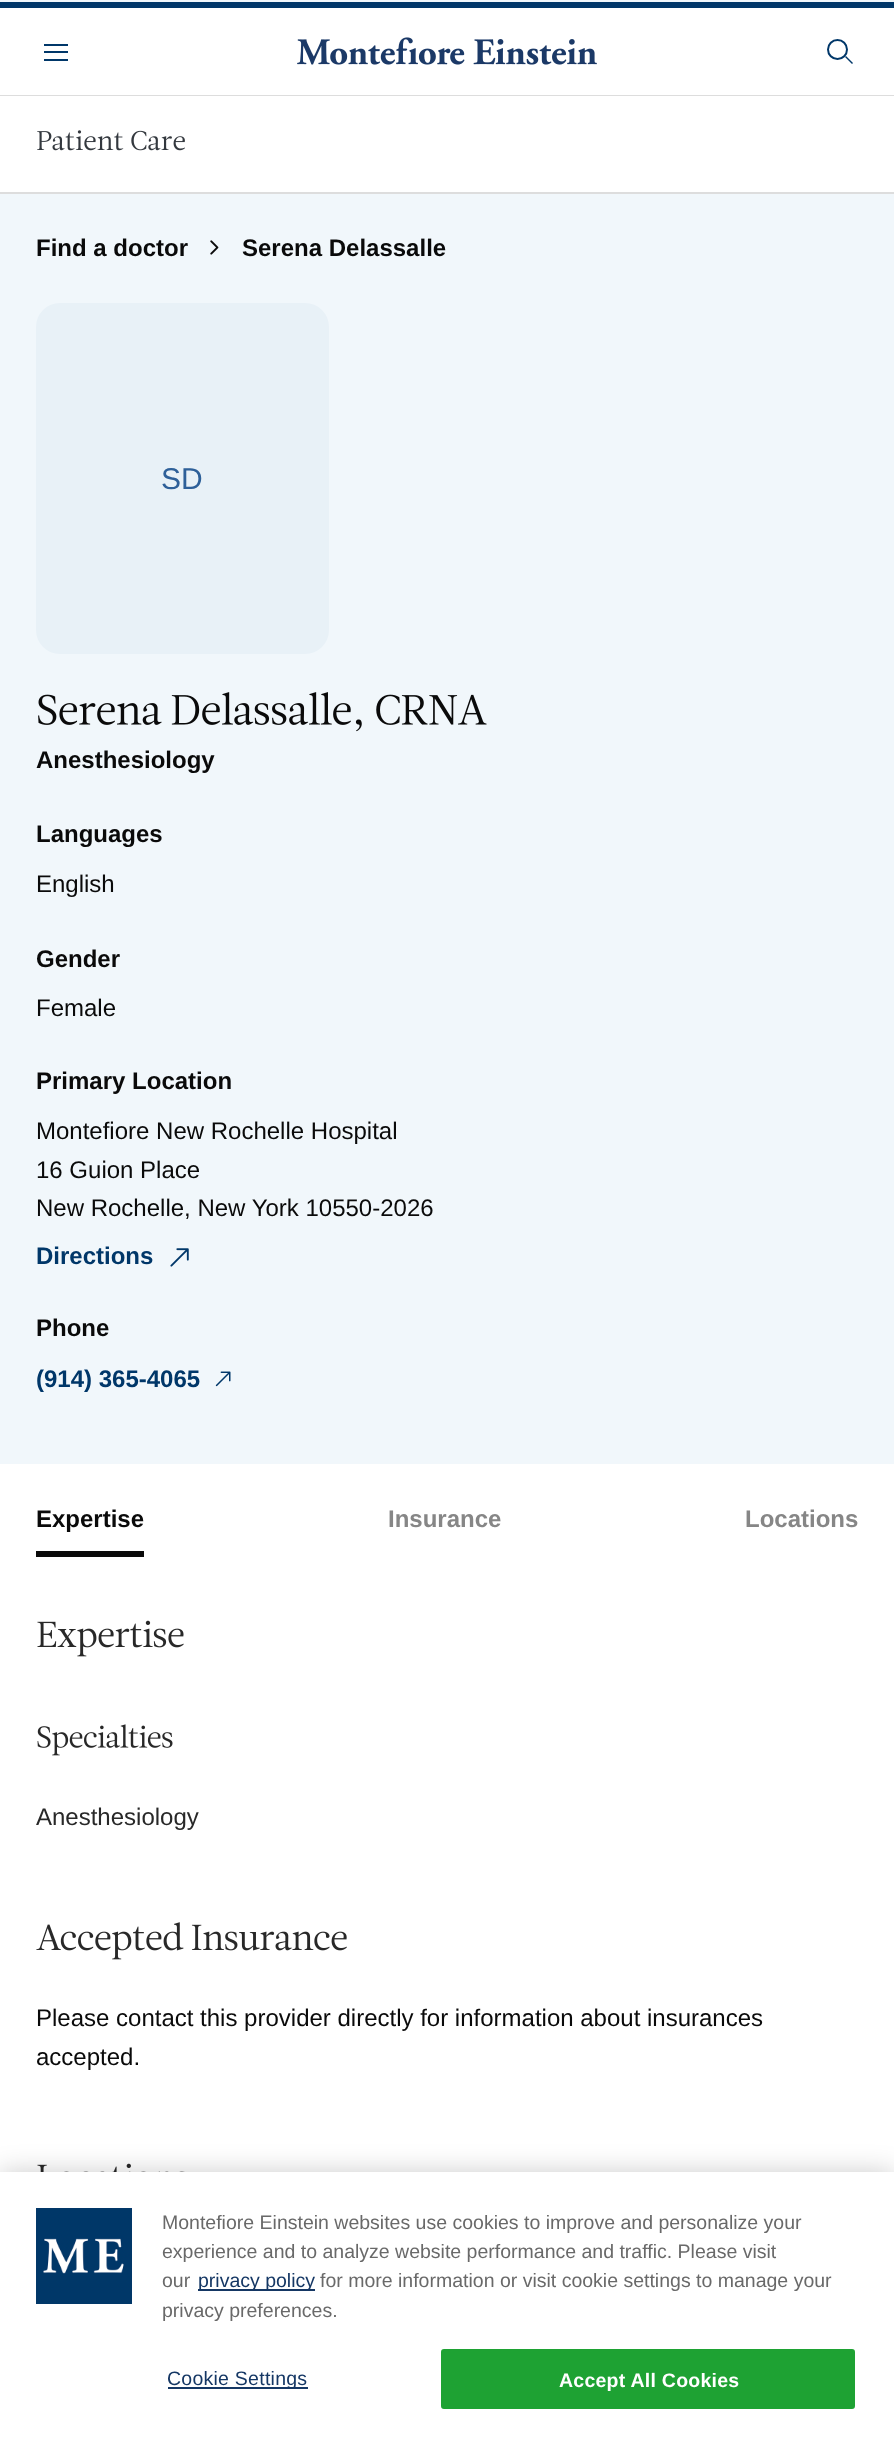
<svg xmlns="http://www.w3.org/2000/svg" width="894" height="2444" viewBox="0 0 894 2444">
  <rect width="100%" height="100%" fill="rgb(241,247,251)"/>
  <rect x="0" y="2" width="894" height="6" fill="rgb(0,55,105)"/>
  <rect x="0" y="8" width="894" height="87" fill="rgb(255,255,255)"/>
  <rect x="0" y="95" width="894" height="1" fill="rgb(221,221,221)"/>
  <rect x="44" y="44" width="24" height="2" fill="rgb(0,55,105)"/>
  <rect x="44" y="51" width="24" height="2" fill="rgb(0,55,105)"/>
  <rect x="44" y="59" width="24" height="2" fill="rgb(0,55,105)"/>
  <image x="297" y="37" width="300" height="28" href="pic1.png"/>
  <circle cx="837.5" cy="49.5" r="9.5" fill="none" stroke="rgb(0,55,105)" stroke-width="2"/>
  <path d="M846 56L853 63L852 64L845 57Z" fill="rgb(0,55,105)"/>
  <rect x="0" y="96" width="894" height="96" fill="rgb(255,255,255)"/>
  <rect x="0" y="192" width="894" height="2" fill="rgb(221,221,221)"/>
  <image x="37" y="130" width="148" height="21" href="pic2.png"/>
  <text x="36" y="256" font-family="Liberation Sans" font-size="24" font-weight="bold" fill="rgb(10,10,10)">Find a doctor</text>
  <image x="210" y="240" width="9" height="15" href="pic3.png"/>
  <text x="242" y="256" font-family="Liberation Sans" font-size="24" font-weight="bold" fill="rgb(10,10,10)">Serena Delassalle</text>
  <rect x="36" y="303" width="293" height="351" rx="24" fill="rgb(232,241,247)"/>
  <text x="161" y="489" font-family="Liberation Sans" font-size="30" fill="rgb(46,96,153)">SD</text>
  <image x="38" y="692" width="449" height="40" href="pic4.png"/>
  <g font-family="Liberation Sans" font-size="24" font-weight="bold" fill="rgb(10,10,10)">
    <text x="36" y="768">Anesthesiology</text>
    <text x="36" y="842">Languages</text>
  </g>
  <text x="36" y="892" font-family="Liberation Sans" font-size="24" fill="rgb(10,10,10)">English</text>
  <text x="36" y="967" font-family="Liberation Sans" font-size="24" font-weight="bold" fill="rgb(10,10,10)">Gender</text>
  <text x="36" y="1016" font-family="Liberation Sans" font-size="24" fill="rgb(10,10,10)">Female</text>
  <text x="36" y="1089" font-family="Liberation Sans" font-size="24" font-weight="bold" fill="rgb(10,10,10)">Primary Location</text>
  <g font-family="Liberation Sans" font-size="24" fill="rgb(10,10,10)">
    <text>
      <tspan x="36" y="1139">Montefiore New Rochelle Hospital</tspan>
      <tspan x="36" y="1178">16 Guion Place</tspan>
      <tspan x="36" y="1216">New Rochelle, New York 10550-2026</tspan>
    </text>
  </g>
  <text x="36" y="1264" font-family="Liberation Sans" font-size="24" font-weight="bold" fill="rgb(0,55,105)">Directions</text>
  <image x="170" y="1248" width="19" height="19" href="pic5.png"/>
  <text x="36" y="1336" font-family="Liberation Sans" font-size="24" font-weight="bold" fill="rgb(10,10,10)">Phone</text>
  <text x="36" y="1387" font-family="Liberation Sans" font-size="24" font-weight="bold" fill="rgb(0,55,105)">(914) 365-4065</text>
  <image x="215" y="1371" width="16" height="16" href="pic6.png"/>
  <rect x="0" y="1464" width="894" height="708" fill="rgb(255,255,255)"/>
  <text x="36" y="1527" font-family="Liberation Sans" font-size="24" font-weight="bold" fill="rgb(10,10,10)">Expertise</text>
  <rect x="36" y="1551" width="108" height="6" fill="rgb(10,10,10)"/>
  <g font-family="Liberation Sans" font-size="24" font-weight="bold" fill="rgb(134,134,134)">
    <text x="388" y="1527">Insurance</text>
    <text x="745" y="1527">Locations</text>
  </g>
  <image x="37" y="1620" width="147" height="37" href="pic7.png"/>
  <image x="37" y="1724" width="136" height="32" href="pic8.png"/>
  <text x="36" y="1825" font-family="Liberation Sans" font-size="24" fill="rgb(40,40,40)">Anesthesiology</text>
  <image x="36" y="1922" width="311" height="38" href="pic9.png"/>
  <g font-family="Liberation Sans" font-size="24" fill="rgb(10,10,10)">
    <text>
      <tspan x="36" y="2026">Please contact this provider directly for information about insurances</tspan>
      <tspan x="36" y="2065">accepted.</tspan>
    </text>
  </g>
  <image x="37" y="2163" width="148" height="9" href="pic10.png"/>
  <rect x="0" y="2172" width="894" height="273" fill="rgba(0,0,0,0.2)" filter="blur(13.5px)"/>
  <rect x="0" y="2172" width="894" height="272" fill="rgb(255,255,255)"/>
  <image x="36" y="2208" width="96" height="96" href="pic11.png"/>
  <g font-family="Liberation Sans" font-size="19.5" fill="rgb(105,105,105)">
    <text>
      <tspan x="162" y="2229">Montefiore Einstein websites use cookies to improve and personalize your</tspan>
      <tspan x="162" y="2258">experience and to analyze website performance and traffic. Please visit</tspan>
      <tspan x="162" y="2287">our</tspan>
    </text>
  </g>
  <rect x="198" y="2289" width="117" height="2" fill="rgb(21,55,100)"/>
  <text x="198" y="2287" font-family="Liberation Sans" font-size="19.5" fill="rgb(21,55,100)">privacy policy</text>
  <g font-family="Liberation Sans" font-size="19.5" fill="rgb(105,105,105)">
    <text x="320" y="2287">for more information or visit cookie settings to manage your</text>
    <text x="162" y="2317">privacy preferences.</text>
  </g>
  <rect x="168" y="2387" width="140" height="2" fill="rgb(21,55,100)"/>
  <text x="167" y="2385" font-family="Liberation Sans" font-size="19.5" letter-spacing="0.25" fill="rgb(21,55,100)">Cookie Settings</text>
  <rect x="442" y="2350" width="412" height="58" rx="2" fill="rgb(30,162,51)" stroke="rgb(30,162,51)" stroke-width="2"/>
  <text x="559" y="2387" font-family="Liberation Sans" font-size="19.5" font-weight="bold" letter-spacing="0.25" fill="rgb(255,255,255)">Accept All Cookies</text>
</svg>
